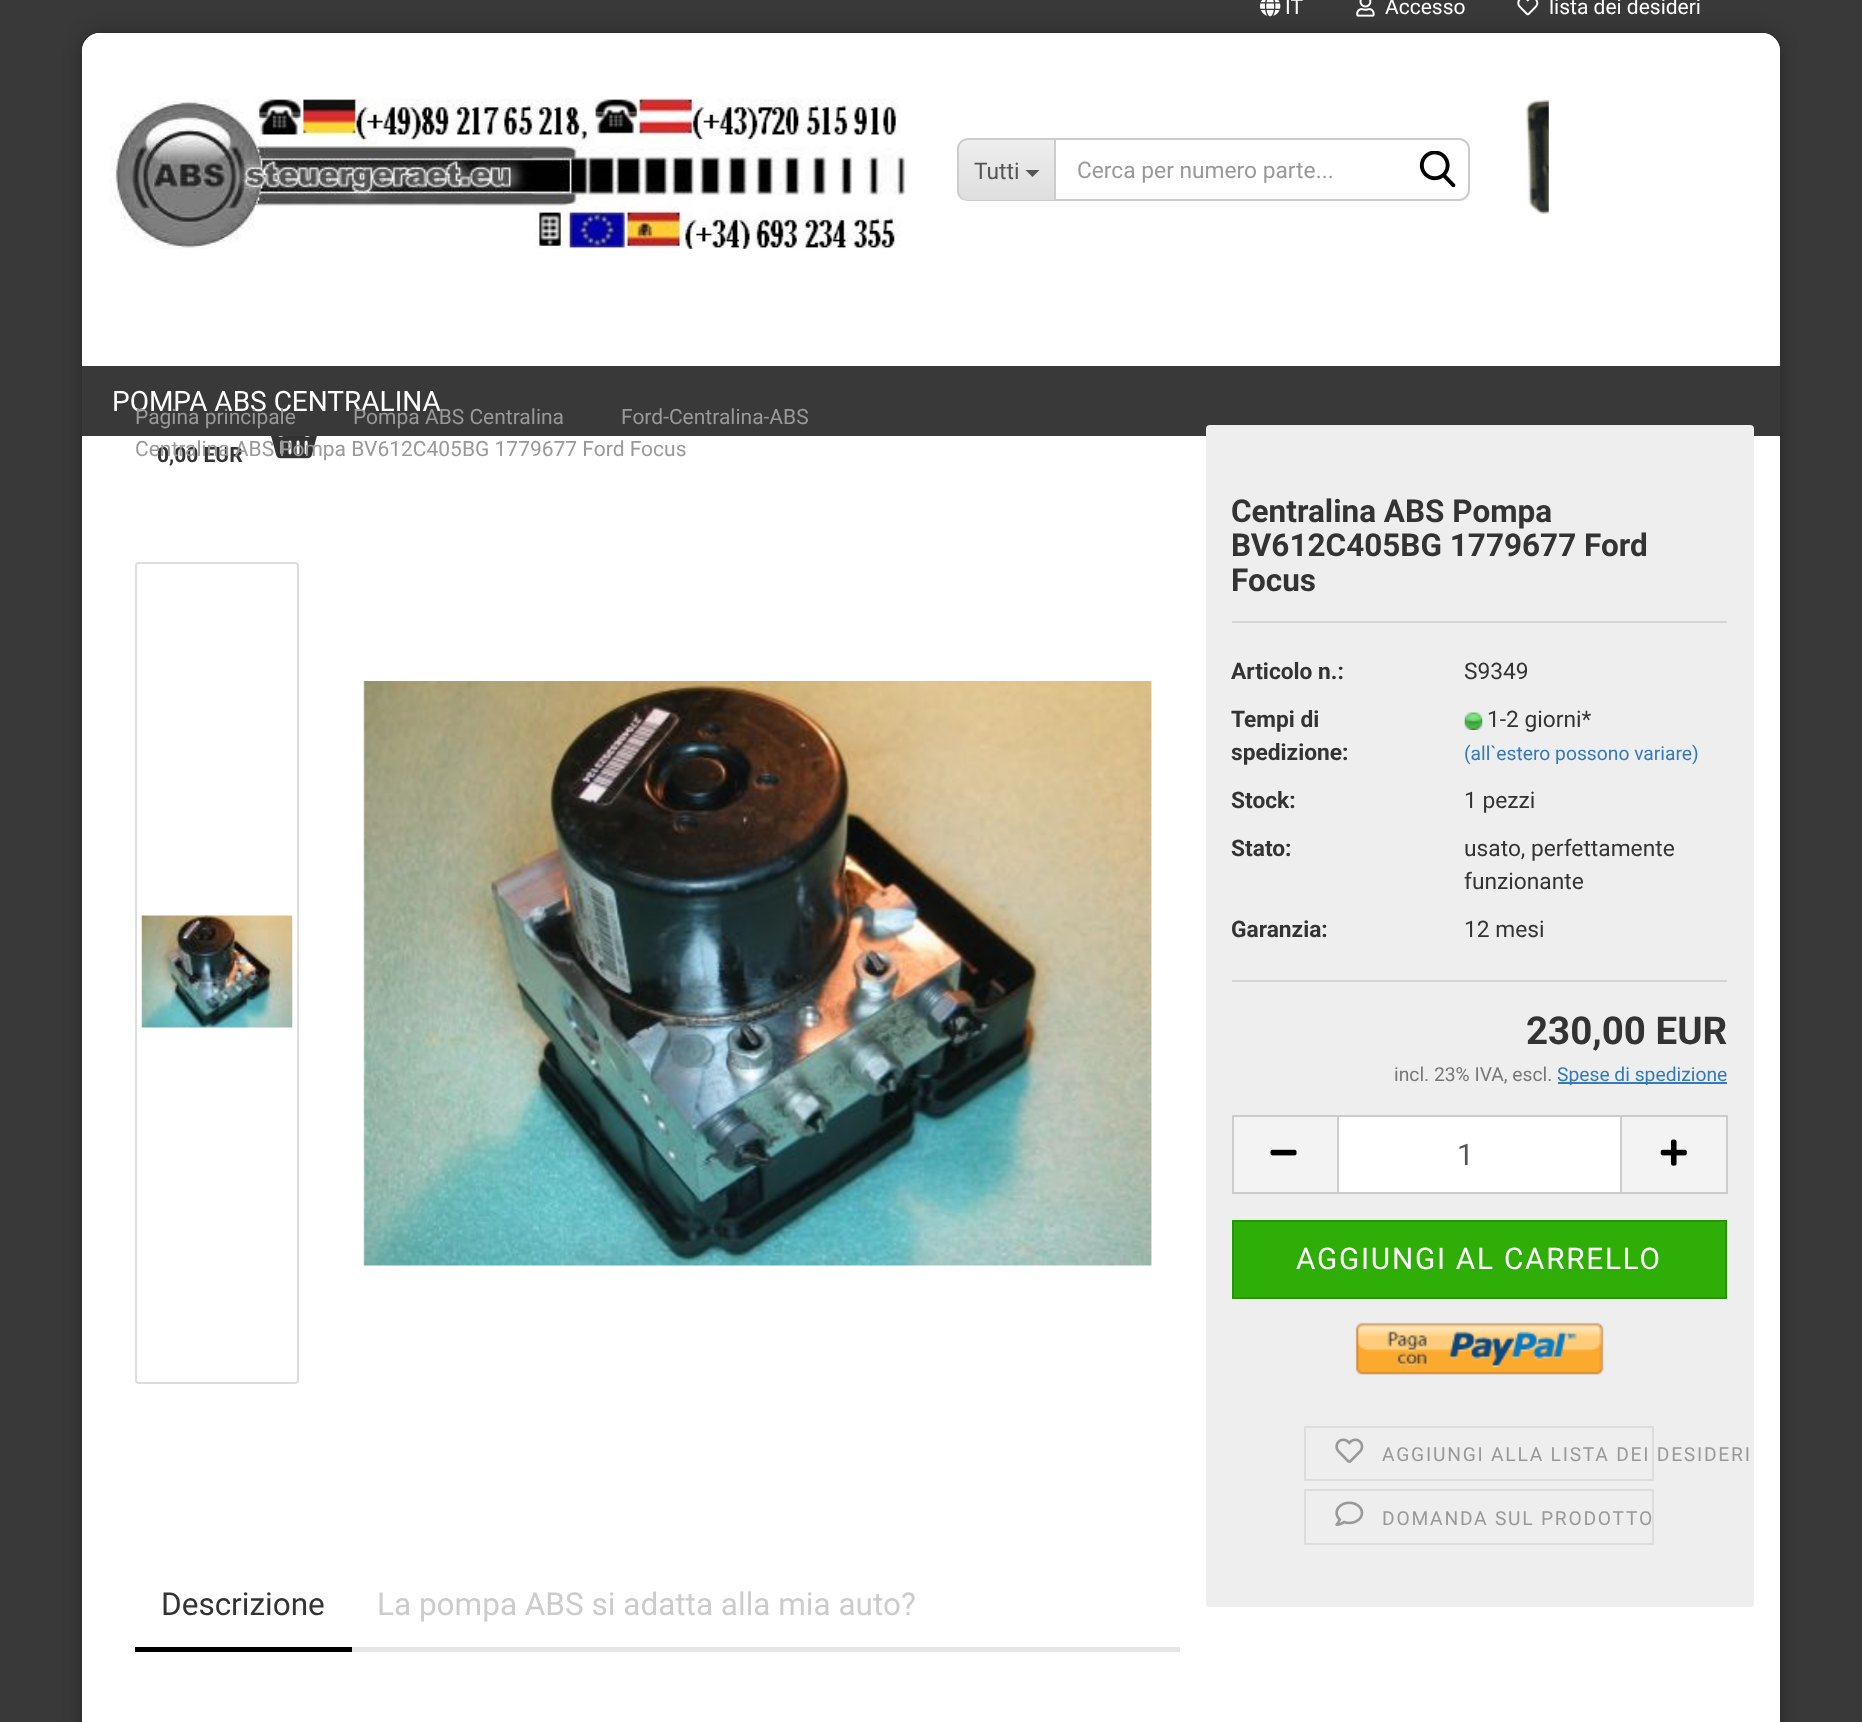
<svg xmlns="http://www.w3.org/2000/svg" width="1862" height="1722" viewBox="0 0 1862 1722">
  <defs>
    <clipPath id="clip1"><path d="M968 138H1054V201H968C962 201 957 196 957 190V149C957 143 962 138 968 138Z"/></clipPath>
    <linearGradient id="g1" gradientUnits="userSpaceOnUse" x1="1006" y1="140" x2="1006" y2="200"><stop offset="0" stop-color="rgb(238,238,238)"/><stop offset="1" stop-color="rgb(222,222,222)"/></linearGradient>
  </defs>
  <rect width="100%" height="100%" fill="rgb(57,57,57)"/>
  <rect x="82" y="33" width="1698" height="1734" rx="18" fill="rgba(0,0,0,0.3)" filter="blur(9px)"/>
  <rect x="82" y="33" width="1698" height="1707" rx="18" fill="rgb(255,255,255)"/>
  <path d="M100 33H1762C1772 33 1780 41 1780 51V344C1780 346 1778 348 1776 348H86C84 348 82 346 82 344V51C82 41 90 33 100 33Z" fill="rgb(255,255,255)"/>
  <image x="1260" y="0" width="21" height="17" href="pic1.png"/>
  <text x="1285" y="14" font-family="Roboto" font-size="21" fill="rgb(255,255,255)">IT</text>
  <image x="1356" y="0" width="19" height="17" href="pic2.png"/>
  <text x="1385" y="14" font-family="Roboto" font-size="21" fill="rgb(255,255,255)">Accesso</text>
  <image x="1517" y="0" width="22" height="16" href="pic3.png"/>
  <text x="1549" y="14" font-family="Roboto" font-size="21" fill="rgb(255,255,255)">lista dei desideri</text>
  <image x="110" y="98" width="795" height="151" href="pic4.png"/>
  <g clip-path="url(#clip1)">
    <rect x="957" y="140" width="97" height="60" fill="url(#g1)"/>
  </g>
  <path d="M968 138H1054V201H968C962 201 957 197 957 191V149C957 143 962 138 968 138ZM968 140H1054V200H968C963 200 959 196 959 191V149C959 144 963 140 968 140Z" fill="rgb(204,204,204)" fill-rule="evenodd"/>
  <text x="974" y="179" font-family="Roboto" font-size="22.75" fill="rgb(85,85,85)">Tutti</text>
  <path d="M1025.5 170H1039.5L1032.5 177Z" fill="rgb(85,85,85)"/>
  <path d="M1055 139H1459C1464.5 139 1469 143.5 1469 149V190C1469 195.5 1464.5 200 1459 200H1055Z" fill="none" stroke="rgb(204,204,204)" stroke-width="2"/>
  <text x="1077" y="178" font-family="Roboto" font-size="22.75" fill="rgb(153,153,153)">Cerca per numero parte...</text>
  <image x="1419" y="151" width="37" height="36" href="pic5.png"/>
  <image x="1526" y="99" width="23" height="116" href="pic6.png"/>
  <text x="157" y="462" font-family="Roboto" font-size="21" font-weight="bold" fill="rgb(51,51,51)">0,00 EUR</text>
  <image x="271" y="436" width="46" height="23" href="pic7.png"/>
  <rect x="82" y="366" width="1698" height="70" fill="rgb(57,57,57)"/>
  <text x="112" y="411" font-family="Roboto" font-size="28" fill="rgb(255,255,255)">POMPA ABS CENTRALINA</text>
  <g font-family="Roboto" font-size="21" fill="rgb(153,153,153)">
    <text x="135" y="424">Pagina principale</text>
    <text x="353" y="424">Pompa ABS Centralina</text>
    <text x="621" y="424">Ford-Centralina-ABS</text>
    <text x="135" y="456">Centralina ABS Pompa BV612C405BG 1779677 Ford Focus</text>
  </g>
  <rect x="136" y="563" width="162" height="820" rx="3" fill="none" stroke="rgb(221,221,221)" stroke-width="2"/>
  <image x="141" y="915" width="152" height="113" href="pic8.png"/>
  <image x="363" y="681" width="789" height="585" href="pic9.png"/>
  <rect x="1206" y="425" width="548" height="1182" rx="4" fill="rgb(238,238,238)"/>
  <rect x="1232" y="621" width="495" height="2" fill="rgb(213,213,213)"/>
  <g font-family="Roboto" font-size="31.5" font-weight="bold" fill="rgb(51,51,51)">
    <text>
      <tspan x="1231" y="522">Centralina ABS Pompa</tspan>
      <tspan x="1231" y="556">BV612C405BG 1779677 Ford</tspan>
      <tspan x="1231" y="591">Focus</tspan>
    </text>
  </g>
  <rect x="1232" y="980" width="495" height="2" fill="rgb(213,213,213)"/>
  <text x="1231" y="679" font-family="Roboto" font-size="22.75" font-weight="bold" fill="rgb(51,51,51)">Articolo n.:</text>
  <text x="1464" y="679" font-family="Roboto" font-size="22.75" fill="rgb(51,51,51)">S9349</text>
  <g font-family="Roboto" font-size="22.75" font-weight="bold" fill="rgb(51,51,51)">
    <text>
      <tspan x="1231" y="727">Tempi di</tspan>
      <tspan x="1231" y="760">spedizione:</tspan>
    </text>
  </g>
  <image x="1464" y="712" width="19" height="18" href="pic10.png"/>
  <text x="1487" y="727" font-family="Roboto" font-size="22.75" fill="rgb(51,51,51)">1-2 giorni*</text>
  <text x="1464" y="760" font-family="Roboto" font-size="19.25" fill="rgb(51,122,183)">(all`estero possono variare)</text>
  <text x="1231" y="808" font-family="Roboto" font-size="22.75" font-weight="bold" fill="rgb(51,51,51)">Stock:</text>
  <text x="1464" y="808" font-family="Roboto" font-size="22.75" fill="rgb(51,51,51)">1 pezzi</text>
  <text x="1231" y="856" font-family="Roboto" font-size="22.75" font-weight="bold" fill="rgb(51,51,51)">Stato:</text>
  <g font-family="Roboto" font-size="22.75" fill="rgb(51,51,51)">
    <text>
      <tspan x="1464" y="856">usato, perfettamente</tspan>
      <tspan x="1464" y="889">funzionante</tspan>
    </text>
  </g>
  <text x="1231" y="937" font-family="Roboto" font-size="22.75" font-weight="bold" fill="rgb(51,51,51)">Garanzia:</text>
  <text x="1464" y="937" font-family="Roboto" font-size="22.75" fill="rgb(51,51,51)">12 mesi</text>
  <text x="1526" y="1044" font-family="Roboto" font-size="38.5" font-weight="bold" fill="rgb(51,51,51)">230,00 EUR</text>
  <text x="1394" y="1081" font-family="Roboto" font-size="19.25" fill="rgb(119,119,119)">incl. 23% IVA, escl.</text>
  <rect x="1558" y="1082" width="169" height="2" fill="rgb(51,122,183)"/>
  <text x="1557" y="1081" font-family="Roboto" font-size="19.25" fill="rgb(51,122,183)">Spese di spedizione</text>
  <rect x="1234" y="1117" width="103" height="75" fill="rgb(243,243,243)"/>
  <rect x="1232" y="1115" width="105" height="2" fill="rgb(204,204,204)"/>
  <rect x="1232" y="1192" width="105" height="2" fill="rgb(204,204,204)"/>
  <rect x="1232" y="1115" width="2" height="79" fill="rgb(204,204,204)"/>
  <image x="1270" y="1149" width="27" height="7" href="pic11.png"/>
  <rect x="1338" y="1116" width="283" height="77" fill="rgb(255,255,255)" stroke="rgb(204,204,204)" stroke-width="2"/>
  <text x="1457" y="1165" font-family="Roboto" font-size="29.75" fill="rgb(85,85,85)">1</text>
  <rect x="1622" y="1117" width="104" height="75" fill="rgb(243,243,243)"/>
  <rect x="1622" y="1115" width="105" height="2" fill="rgb(204,204,204)"/>
  <rect x="1726" y="1115" width="2" height="79" fill="rgb(204,204,204)"/>
  <rect x="1622" y="1192" width="105" height="2" fill="rgb(204,204,204)"/>
  <image x="1660" y="1139" width="27" height="27" href="pic12.png"/>
  <rect x="1233" y="1221" width="493" height="77" fill="rgb(46,174,6)" stroke="rgb(39,149,5)" stroke-width="2"/>
  <text x="1296" y="1269" font-family="Roboto" font-size="29.75" letter-spacing="1.75" fill="rgb(255,255,255)">AGGIUNGI AL CARRELLO</text>
  <image x="1355" y="1322" width="249" height="53" href="pic13.png"/>
  <rect x="1305" y="1427" width="348" height="53" fill="none" stroke="rgb(221,221,221)" stroke-width="2"/>
  <image x="1335" y="1438" width="29" height="25" href="pic14.png"/>
  <text x="1382" y="1461" font-family="Roboto" font-size="19.25" letter-spacing="1.75" fill="rgb(153,153,153)">AGGIUNGI ALLA LISTA DEI DESIDERI</text>
  <rect x="1305" y="1490" width="348" height="54" fill="none" stroke="rgb(221,221,221)" stroke-width="2"/>
  <image x="1335" y="1501" width="29" height="25" href="pic15.png"/>
  <text x="1382" y="1525" font-family="Roboto" font-size="19.25" letter-spacing="1.75" fill="rgb(153,153,153)">DOMANDA SUL PRODOTTO</text>
  <rect x="352" y="1647" width="828" height="5" fill="rgb(231,231,231)"/>
  <rect x="135" y="1647" width="217" height="5" fill="rgb(0,0,0)"/>
  <text x="161" y="1615" font-family="Roboto" font-size="31.5" fill="rgb(51,51,51)">Descrizione</text>
  <text x="377" y="1615" font-family="Roboto" font-size="31.5" fill="rgb(204,204,204)">La pompa ABS si adatta alla mia auto?</text>
</svg>
